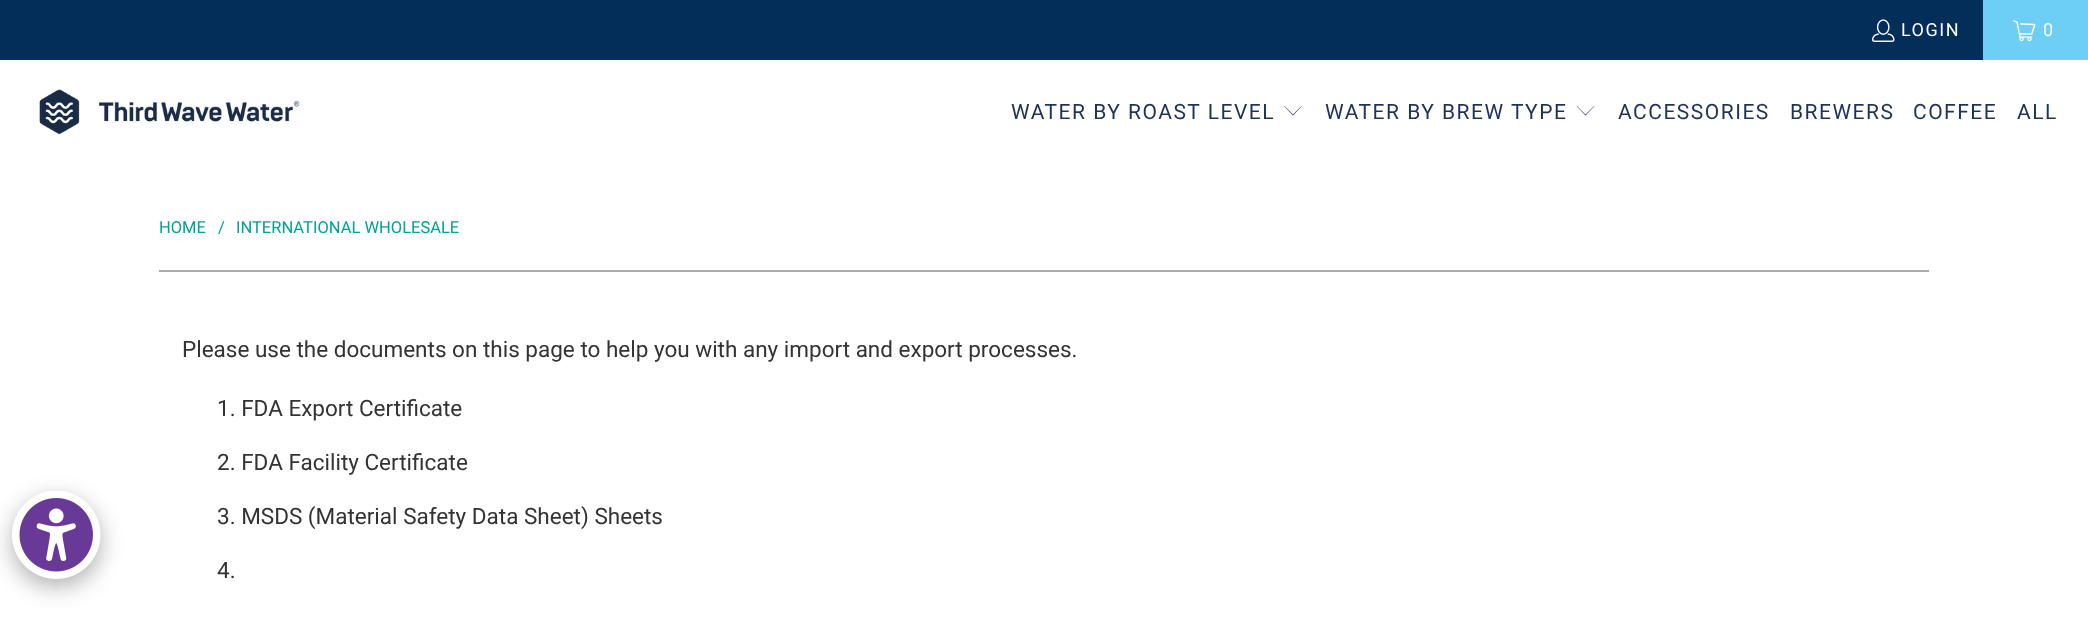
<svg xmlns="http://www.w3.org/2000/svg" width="2088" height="636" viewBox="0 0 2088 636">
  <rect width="100%" height="100%" fill="rgb(255,255,255)"/>
  <rect x="12" y="498" width="89" height="89" rx="44.5" fill="rgba(0,0,0,0.3)" filter="blur(11px)"/>
  <image x="12" y="491" width="89" height="88" href="pic1.png"/>
  <rect x="0" y="0" width="1983" height="60" fill="rgb(2,46,89)"/>
  <image x="1872" y="19" width="23" height="23" href="pic2.png"/>
  <text x="1901" y="36" font-family="Roboto" font-size="18" letter-spacing="1.5" fill="rgb(255,255,255)">LOGIN</text>
  <rect x="1983" y="0" width="105" height="60" fill="rgb(109,207,246)"/>
  <image x="2013" y="20" width="23" height="22" href="pic3.png"/>
  <text x="2043" y="36" font-family="Roboto" font-size="18" letter-spacing="1.5" fill="rgb(255,255,255)">0</text>
  <image x="39" y="89" width="261" height="46" href="pic4.png"/>
  <text x="1011" y="119" font-family="Roboto" font-size="21" letter-spacing="1.5" fill="rgb(30,51,90)">WATER BY ROAST LEVEL</text>
  <path d="M1293 115.5L1284 106H1284.5L1293 114.5L1301.5 106H1302Z" fill="rgb(30,51,90)"/>
  <text x="1325" y="119" font-family="Roboto" font-size="21" letter-spacing="1.5" fill="rgb(30,51,90)">WATER BY BREW TYPE</text>
  <path d="M1585.5 115.5L1576.5 106H1577L1585.5 114.5L1594 106H1594.5Z" fill="rgb(30,51,90)"/>
  <g font-family="Roboto" font-size="21" letter-spacing="1.5" fill="rgb(30,51,90)">
    <text x="1618" y="119">ACCESSORIES</text>
    <text x="1790" y="119">BREWERS</text>
    <text x="1913" y="119">COFFEE</text>
    <text x="2017" y="119">ALL</text>
  </g>
  <g font-family="Roboto" font-size="16.5" fill="rgb(3,161,150)">
    <text x="159" y="233">HOME</text>
    <text x="218" y="233">/</text>
    <text x="236" y="233">INTERNATIONAL WHOLESALE</text>
  </g>
  <rect x="159" y="270" width="1770" height="2" fill="rgb(170,170,170)"/>
  <g font-family="Roboto" font-size="22.5" fill="rgb(51,51,51)">
    <text x="182" y="357">Please use the documents on this page to help you with any import and export processes.</text>
    <text x="217" y="416">1. FDA Export Certificate</text>
    <text x="217" y="470">2. FDA Facility Certificate</text>
    <text x="217" y="524">3. MSDS (Material Safety Data Sheet) Sheets</text>
    <text x="217" y="578">4.</text>
  </g>
</svg>
